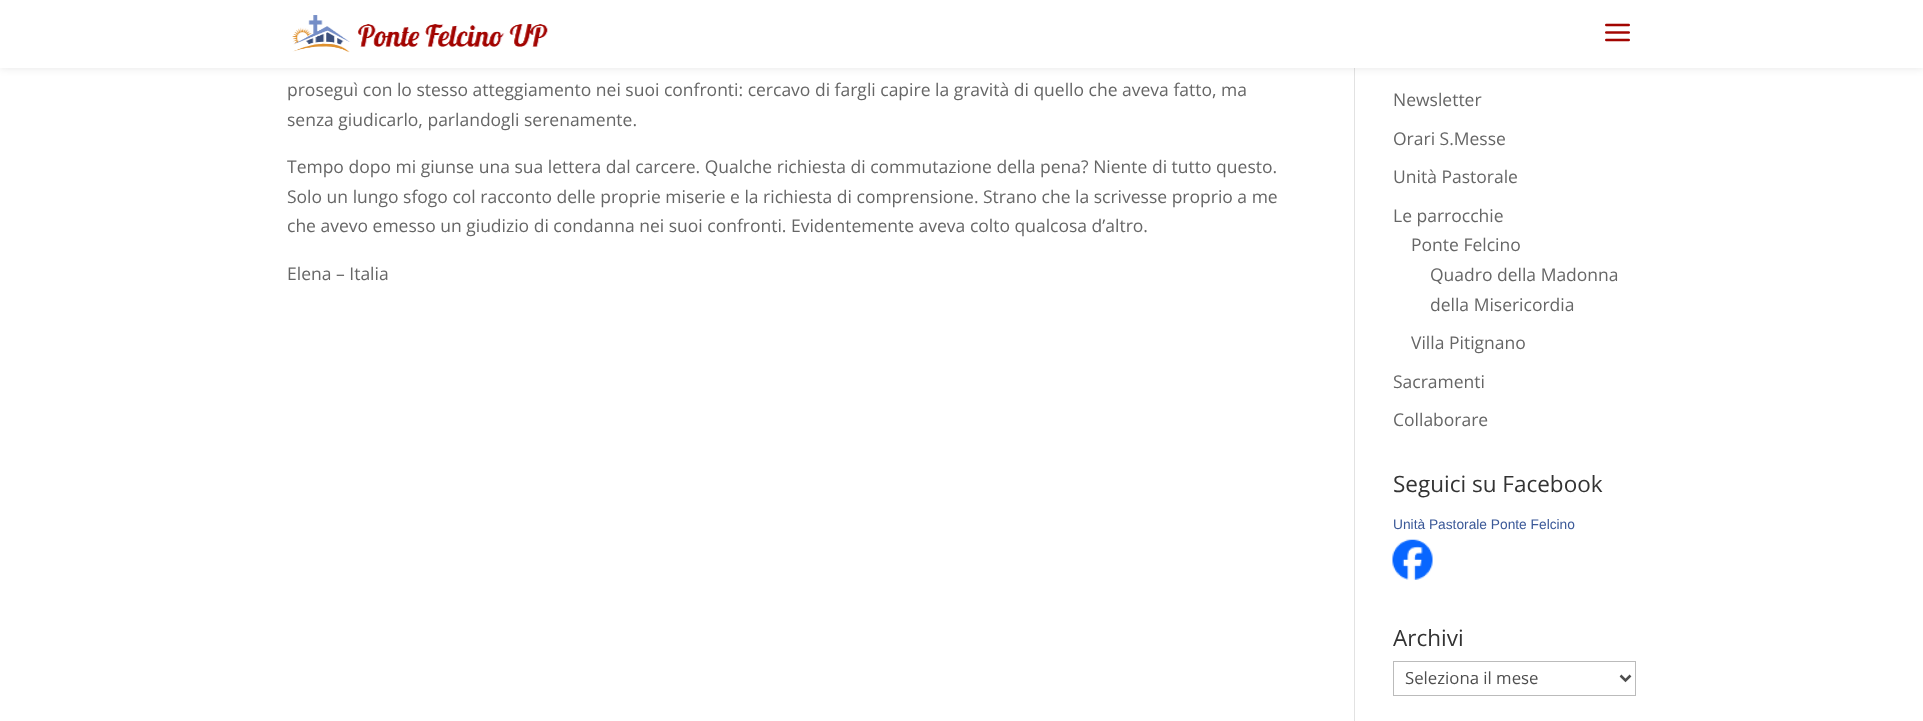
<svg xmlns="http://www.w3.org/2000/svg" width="1923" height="721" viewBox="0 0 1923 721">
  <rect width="100%" height="100%" fill="rgb(255,255,255)"/>
  <rect x="1354" y="68" width="1" height="653" fill="rgb(226,226,226)"/>
  <rect x="0" y="0" width="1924" height="68" fill="rgba(0,0,0,0.1)" filter="blur(4.5px)"/>
  <rect x="0" y="0" width="1923" height="68" fill="rgb(255,255,255)"/>
  <image x="292" y="15" width="256" height="38" href="pic1.png"/>
  <image x="1605" y="23" width="25" height="19" href="pic2.png"/>
  <g font-family="Open Sans" font-size="17.5" fill="rgb(102,102,102)">
    <text>
      <tspan x="287" y="96">proseguì con lo stesso atteggiamento nei suoi confronti: cercavo di fargli capire la gravità di quello che aveva fatto, ma</tspan>
      <tspan x="287" y="126">senza giudicarlo, parlandogli serenamente.</tspan>
    </text>
    <text>
      <tspan x="287" y="173">Tempo dopo mi giunse una sua lettera dal carcere. Qualche richiesta di commutazione della pena? Niente di tutto questo.</tspan>
      <tspan x="287" y="203">Solo un lungo sfogo col racconto delle proprie miserie e la richiesta di comprensione. Strano che la scrivesse proprio a me</tspan>
      <tspan x="287" y="232">che avevo emesso un giudizio di condanna nei suoi confronti. Evidentemente aveva colto qualcosa d’altro.</tspan>
    </text>
    <text x="287" y="280">Elena – Italia</text>
    <text x="1393" y="106">Newsletter</text>
    <text x="1393" y="145">Orari S.Messe</text>
    <text x="1393" y="183">Unità Pastorale</text>
    <text x="1393" y="222">Le parrocchie</text>
    <text x="1411" y="251">Ponte Felcino</text>
    <text>
      <tspan x="1430" y="281">Quadro della Madonna</tspan>
      <tspan x="1430" y="311">della Misericordia</tspan>
    </text>
    <text x="1411" y="349">Villa Pitignano</text>
    <text x="1393" y="388">Sacramenti</text>
    <text x="1393" y="426">Collaborare</text>
  </g>
  <text x="1393" y="492" font-family="Open Sans" font-size="22.5" fill="rgb(51,51,51)">Seguici su Facebook</text>
  <text x="1393" y="529" font-family="Liberation Sans" font-size="13.75" fill="rgb(59,89,152)">Unità Pastorale Ponte Felcino</text>
  <image x="1392" y="539" width="41" height="41" href="pic3.png"/>
  <text x="1393" y="646" font-family="Open Sans" font-size="22.5" fill="rgb(51,51,51)">Archivi</text>
  <rect x="1393.5" y="661.5" width="242" height="34" fill="none" stroke="rgb(187,187,187)"/>
  <path d="M1620.5 675.5L1625.5 680.5L1630.5 675.5" fill="none" stroke="rgb(78,78,78)" stroke-width="2.5"/>
  <text x="1405" y="684" font-family="Open Sans" font-size="16.75" fill="rgb(78,78,78)">Seleziona il mese</text>
</svg>
